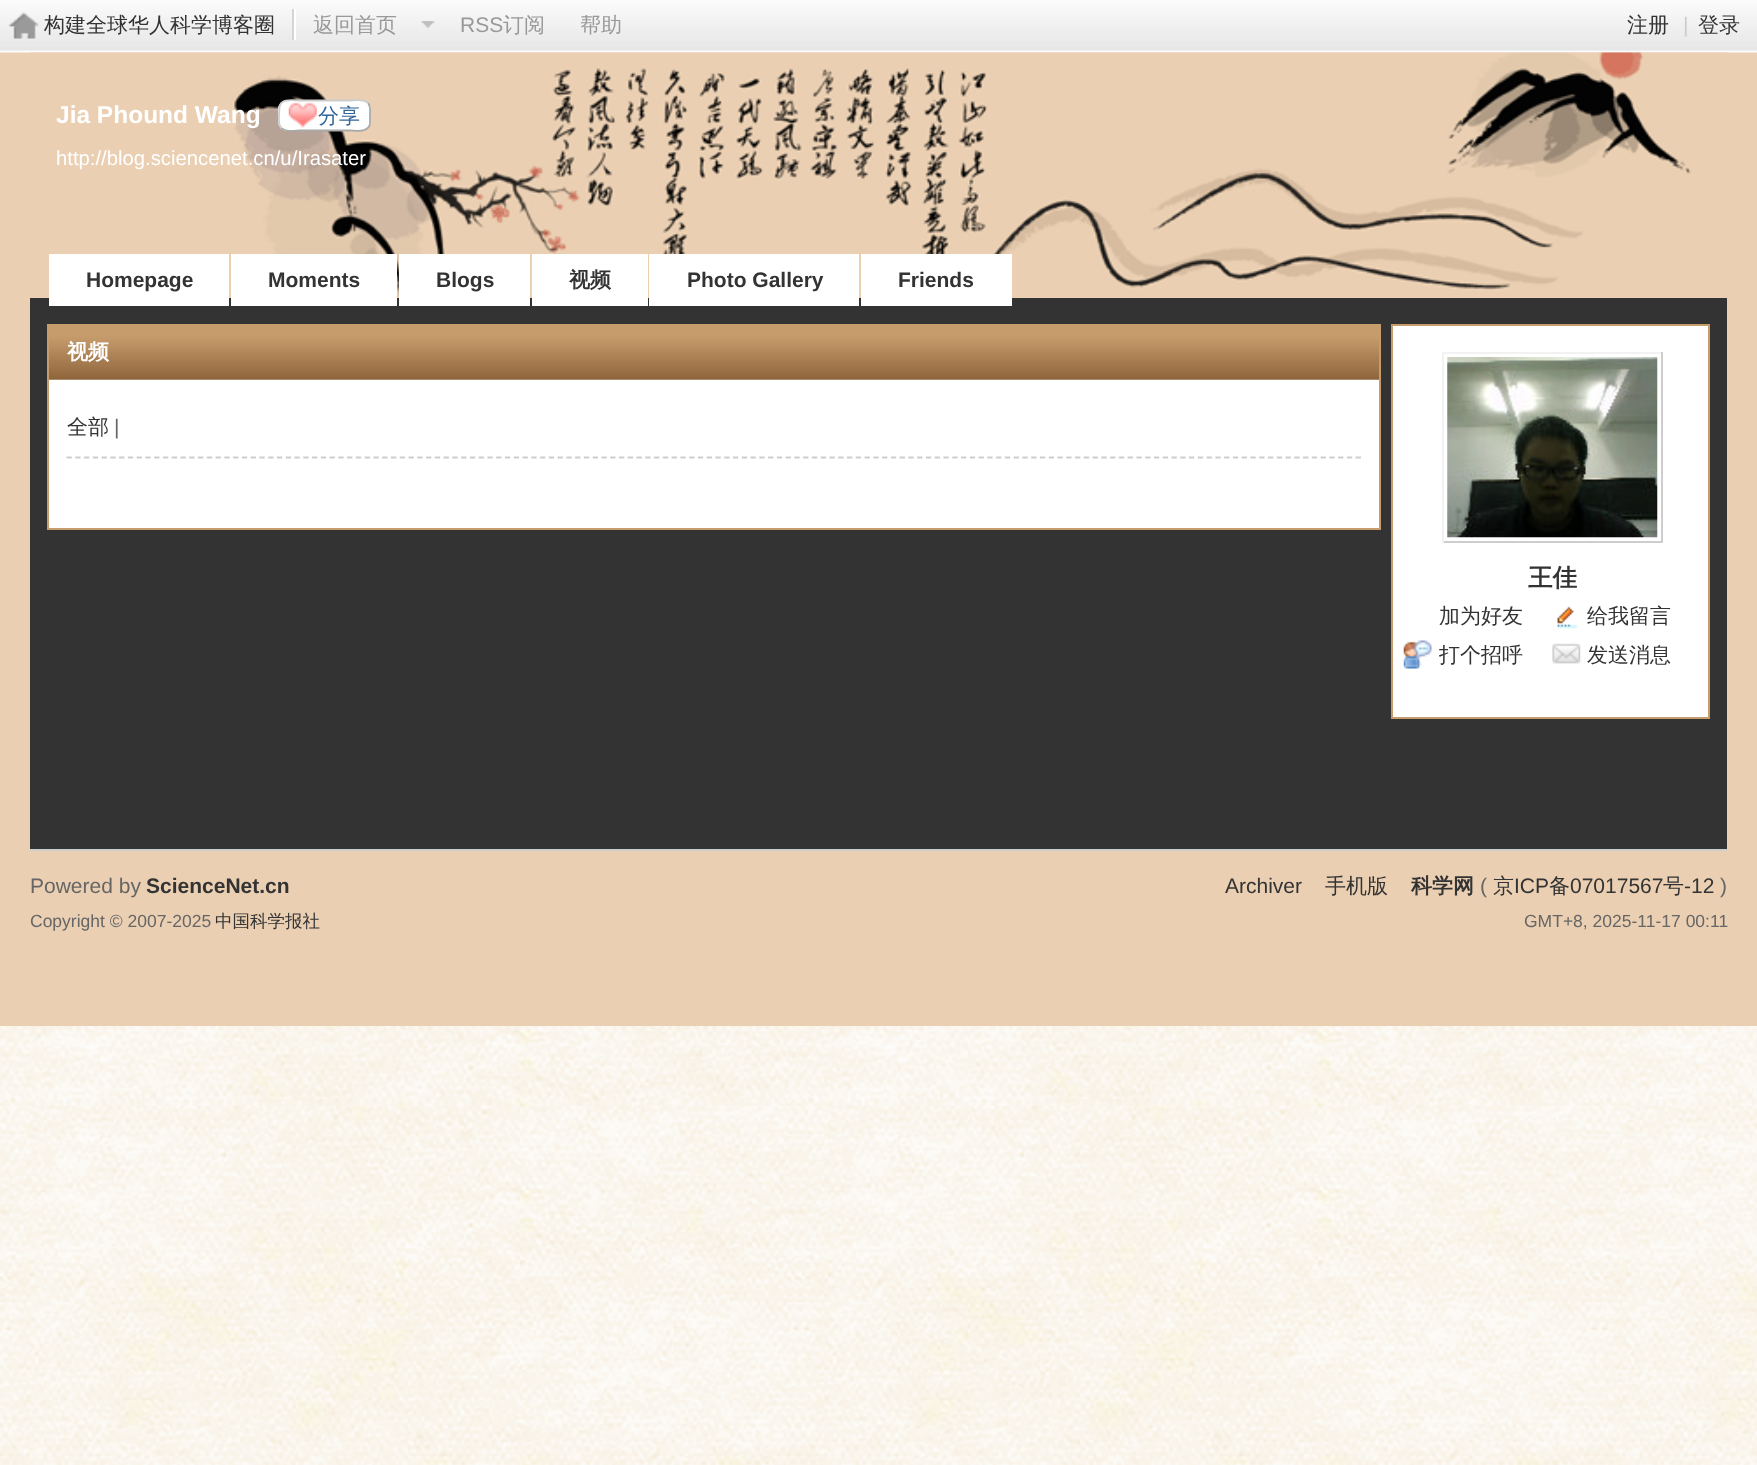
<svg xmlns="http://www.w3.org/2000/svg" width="1757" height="1465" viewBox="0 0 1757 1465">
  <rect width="100%" height="100%" fill="rgb(255,255,255)"/>
  <image x="0" y="1026" width="1757" height="439" href="pic1.png"/>
  <rect x="0" y="52" width="1757" height="974" fill="rgb(234,207,178)"/>
  <image x="0" y="0" width="1757" height="53" href="pic2.png"/>
  <image x="8" y="12" width="31" height="27" href="pic3.png"/>
  <rect x="294" y="9" width="2" height="31" fill="rgb(255,255,255)"/>
  <rect x="292" y="9" width="2" height="31" fill="rgb(213,213,213)"/>
  <text x="44" y="32" font-family="WenQuanYi Zen Hei" font-size="21" font-weight="500" fill="rgb(51,51,51)">构建全球华人科学博客圈</text>
  <text x="313" y="32" font-family="WenQuanYi Zen Hei" font-size="21" font-weight="500" fill="rgb(153,153,153)">返回首页</text>
  <image x="421" y="21" width="14" height="7" href="pic4.png"/>
  <text x="460" y="32" font-family="Liberation Sans" font-size="21" fill="rgb(153,153,153)">RSS</text>
  <g font-family="WenQuanYi Zen Hei" font-size="21" font-weight="500" fill="rgb(153,153,153)">
    <text x="503" y="32">订阅</text>
    <text x="580" y="32">帮助</text>
  </g>
  <text x="1627" y="32" font-family="WenQuanYi Zen Hei" font-size="21" font-weight="500" fill="rgb(51,51,51)">注册</text>
  <text x="1683" y="32" font-family="Liberation Sans" font-size="21" fill="rgb(204,204,204)">|</text>
  <text x="1698" y="32" font-family="WenQuanYi Zen Hei" font-size="21" font-weight="500" fill="rgb(51,51,51)">登录</text>
  <image x="29" y="52" width="1699" height="246" href="pic5.png"/>
  <text x="56" y="123" font-family="Liberation Sans" font-size="24.5" font-weight="bold" fill="rgb(255,255,255)">Jia Phound Wang</text>
  <rect x="278" y="100" width="93" height="31" rx="9" fill="rgb(255,255,255)"/>
  <image x="288" y="102" width="29" height="27" href="pic6.png"/>
  <path d="M368 103C371 106 370 111.5 370 115.5V124C368 133 355.5 130.5 349.5 130.5H299.5C295.5 130.5 285.5 132.5 281.5 128" fill="none" stroke="rgb(169,169,169)" stroke-width="1.8"/>
  <path d="M281.5 128C278 125 279 119.5 279 115.5L279.5 107C281 98 293.5 100.5 299.5 100.5H349.5C354 100.5 363.5 98.5 368 103" fill="none" stroke="rgb(204,204,204)" stroke-width="1.8"/>
  <text x="318" y="123" font-family="WenQuanYi Zen Hei" font-size="21" font-weight="500" fill="rgb(51,102,153)">分享</text>
  <text x="56" y="165" font-family="Liberation Sans" font-size="20.3" fill="rgb(255,255,255)">http://blog.sciencenet.cn/u/Irasater</text>
  <rect x="30" y="298" width="1697" height="551" fill="rgb(51,51,51)"/>
  <rect x="49" y="254" width="180" height="52" fill="rgb(255,255,255)"/>
  <text x="86" y="287" font-family="Liberation Sans" font-size="21" font-weight="bold" fill="rgb(51,51,51)">Homepage</text>
  <rect x="231" y="254" width="166" height="52" fill="rgb(255,255,255)"/>
  <text x="268" y="287" font-family="Liberation Sans" font-size="21" font-weight="bold" fill="rgb(51,51,51)">Moments</text>
  <rect x="399" y="254" width="131" height="52" fill="rgb(255,255,255)"/>
  <text x="436" y="287" font-family="Liberation Sans" font-size="21" font-weight="bold" fill="rgb(51,51,51)">Blogs</text>
  <rect x="532" y="254" width="116" height="52" fill="rgb(255,255,255)"/>
  <text x="569" y="287" font-family="WenQuanYi Zen Hei" font-size="21" font-weight="bold" fill="rgb(51,51,51)">视频</text>
  <rect x="649" y="254" width="210" height="52" fill="rgb(255,255,255)"/>
  <text x="687" y="287" font-family="Liberation Sans" font-size="21" font-weight="bold" fill="rgb(51,51,51)">Photo Gallery</text>
  <rect x="861" y="254" width="151" height="52" fill="rgb(255,255,255)"/>
  <text x="898" y="287" font-family="Liberation Sans" font-size="21" font-weight="bold" fill="rgb(51,51,51)">Friends</text>
  <rect x="49" y="379" width="1330" height="149" fill="rgb(255,255,255)"/>
  <rect x="48" y="325" width="1332" height="204" fill="none" stroke="rgb(198,156,109)" stroke-width="2"/>
  <image x="49" y="326" width="1330" height="54" href="pic7.png"/>
  <text x="67" y="359" font-family="WenQuanYi Zen Hei" font-size="21" font-weight="bold" fill="rgb(255,255,255)">视频</text>
  <path d="M66.5 457.5H1361.5" fill="none" stroke="rgb(205,205,205)" stroke-width="1.8" stroke-dasharray="5.25 3.52"/>
  <text x="67" y="434" font-family="WenQuanYi Zen Hei" font-size="21" font-weight="500" fill="rgb(51,51,51)">全部</text>
  <text x="114" y="434" font-family="Liberation Sans" font-size="21" fill="rgb(102,102,102)">|</text>
  <rect x="1392" y="325" width="317" height="393" fill="rgb(255,255,255)" stroke="rgb(198,156,109)" stroke-width="2"/>
  <rect x="1442" y="352" width="221" height="2" fill="rgb(242,242,242)"/>
  <rect x="1661" y="352" width="2" height="191" fill="rgb(205,205,205)"/>
  <rect x="1442" y="541" width="221" height="2" fill="rgb(205,205,205)"/>
  <rect x="1442" y="352" width="2" height="191" fill="rgb(242,242,242)"/>
  <image x="1447" y="357" width="211" height="181" href="pic8.png"/>
  <text x="1528" y="586" font-family="WenQuanYi Zen Hei" font-size="24.5" font-weight="bold" fill="rgb(51,51,51)">王佳</text>
  <text x="1439" y="623" font-family="WenQuanYi Zen Hei" font-size="21" font-weight="500" fill="rgb(51,51,51)">加为好友</text>
  <image x="1557" y="606" width="21" height="23" href="pic9.png"/>
  <text x="1587" y="623" font-family="WenQuanYi Zen Hei" font-size="21" font-weight="500" fill="rgb(51,51,51)">给我留言</text>
  <image x="1403" y="640" width="29" height="29" href="pic10.png"/>
  <text x="1439" y="662" font-family="WenQuanYi Zen Hei" font-size="21" font-weight="500" fill="rgb(51,51,51)">打个招呼</text>
  <image x="1552" y="643" width="29" height="21" href="pic11.png"/>
  <text x="1587" y="662" font-family="WenQuanYi Zen Hei" font-size="21" font-weight="500" fill="rgb(51,51,51)">发送消息</text>
  <rect x="30" y="849" width="1697" height="2" fill="rgb(205,205,205)"/>
  <text x="30" y="893" font-family="Liberation Sans" font-size="21" fill="rgb(102,102,102)">Powered by</text>
  <text x="146" y="893" font-family="Liberation Sans" font-size="21" font-weight="bold" fill="rgb(51,51,51)">ScienceNet.cn</text>
  <text x="30" y="927" font-family="Liberation Sans" font-size="17.5" fill="rgb(102,102,102)">Copyright © 2007-2025</text>
  <text x="215" y="927" font-family="WenQuanYi Zen Hei" font-size="17.5" font-weight="500" fill="rgb(51,51,51)">中国科学报社</text>
  <text x="1225" y="893" font-family="Liberation Sans" font-size="21" fill="rgb(51,51,51)">Archiver</text>
  <text x="1325" y="893" font-family="WenQuanYi Zen Hei" font-size="21" font-weight="500" fill="rgb(51,51,51)">手机版</text>
  <text x="1411" y="893" font-family="WenQuanYi Zen Hei" font-size="21" font-weight="bold" fill="rgb(51,51,51)">科学网</text>
  <text x="1480" y="893" font-family="Liberation Sans" font-size="21" fill="rgb(102,102,102)">(</text>
  <text x="1493" y="893" font-family="WenQuanYi Zen Hei" font-size="21" font-weight="500" fill="rgb(51,51,51)">京</text>
  <text x="1514" y="893" font-family="Liberation Sans" font-size="21" fill="rgb(51,51,51)">ICP</text>
  <text x="1549" y="893" font-family="WenQuanYi Zen Hei" font-size="21" font-weight="500" fill="rgb(51,51,51)">备</text>
  <text x="1570" y="893" font-family="Liberation Sans" font-size="21" fill="rgb(51,51,51)">07017567</text>
  <text x="1663" y="893" font-family="WenQuanYi Zen Hei" font-size="21" font-weight="500" fill="rgb(51,51,51)">号</text>
  <text x="1684" y="893" font-family="Liberation Sans" font-size="21" fill="rgb(51,51,51)">-12</text>
  <text x="1720" y="893" font-family="Liberation Sans" font-size="21" fill="rgb(102,102,102)">)</text>
  <text x="1524" y="927" font-family="Liberation Sans" font-size="17.5" fill="rgb(102,102,102)">GMT+8, 2025-11-17 00:11</text>
</svg>
